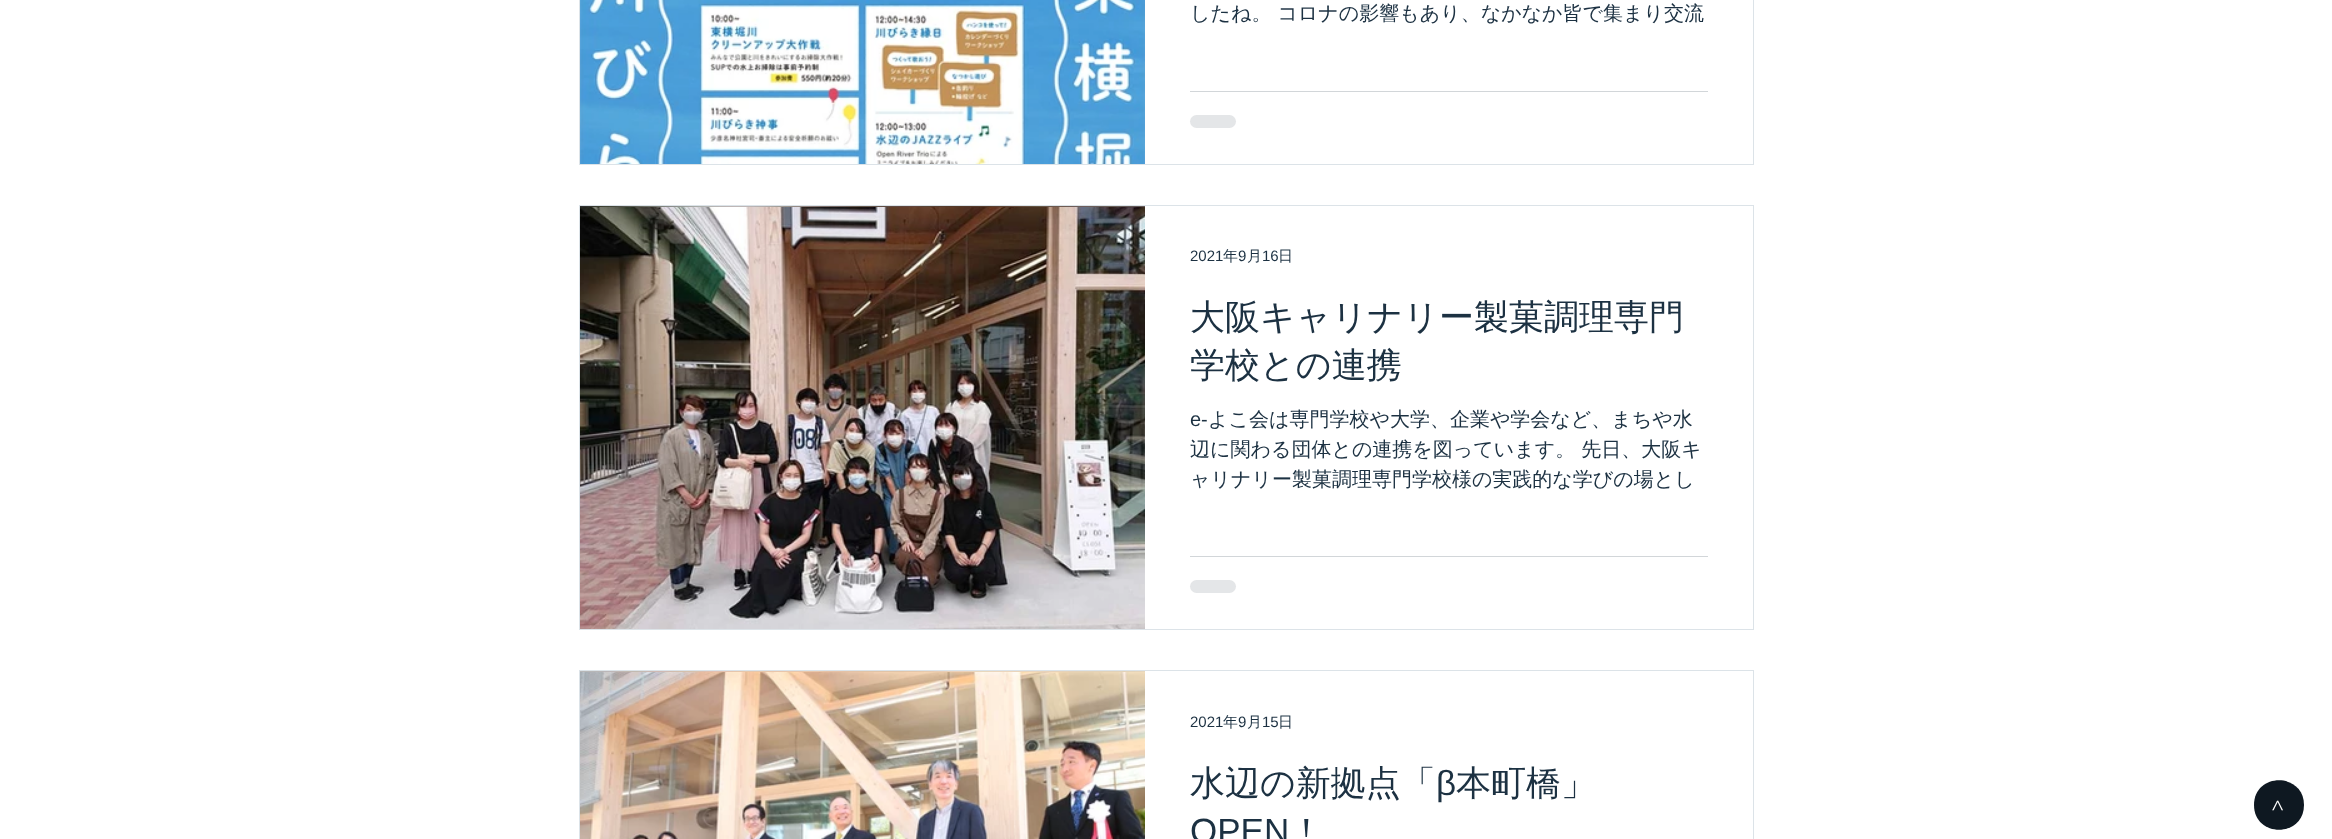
<svg xmlns="http://www.w3.org/2000/svg" width="2332" height="839" viewBox="0 0 2332 839">
  <rect width="100%" height="100%" fill="rgb(255,255,255)"/>
  <rect x="579.5" y="-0.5" width="1174" height="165" fill="none" stroke="rgb(220,227,232)"/>
  <image x="580" y="0" width="565" height="164" href="pic1.png"/>
  <text x="1190" y="20" font-family="WenQuanYi Zen Hei" font-size="20" font-weight="500" fill="rgb(28,49,66)">したね。 コロナの影響もあり、なかなか皆で集まり交流</text>
  <rect x="1190" y="91" width="518" height="1" fill="rgb(210,214,217)"/>
  <rect x="1190" y="115" width="46" height="13" rx="6.5" fill="rgb(228,230,232)"/>
  <rect x="579.5" y="205.5" width="1174" height="424" fill="none" stroke="rgb(220,227,232)"/>
  <image x="580" y="206" width="565" height="1" href="pic2.png"/>
  <image x="580" y="207" width="565" height="422" href="pic3.png"/>
  <text x="1190" y="261" font-family="Liberation Sans" font-size="15" fill="rgb(28,49,66)">2021</text>
  <text x="1223" y="261" font-family="WenQuanYi Zen Hei" font-size="15" font-weight="500" fill="rgb(28,49,66)">年</text>
  <text x="1238" y="261" font-family="Liberation Sans" font-size="15" fill="rgb(28,49,66)">9</text>
  <text x="1247" y="261" font-family="WenQuanYi Zen Hei" font-size="15" font-weight="500" fill="rgb(28,49,66)">月</text>
  <text x="1262" y="261" font-family="Liberation Sans" font-size="15" fill="rgb(28,49,66)">16</text>
  <text x="1278" y="261" font-family="WenQuanYi Zen Hei" font-size="15" font-weight="500" fill="rgb(28,49,66)">日</text>
  <g font-family="WenQuanYi Zen Hei" font-size="35" font-weight="500" fill="rgb(28,49,66)">
    <text>
      <tspan x="1190" y="329">大阪キャリナリー製菓調理専門</tspan>
      <tspan x="1190" y="377">学校との連携</tspan>
    </text>
  </g>
  <text x="1190" y="426" font-family="Liberation Sans" font-size="20" fill="rgb(28,49,66)">e-</text>
  <g font-family="WenQuanYi Zen Hei" font-size="20" font-weight="500" fill="rgb(28,49,66)">
    <text x="1208" y="426">よこ会は専門学校や大学、企業や学会など、まちや水</text>
    <text>
      <tspan x="1190" y="456">辺に関わる団体との連携を図っています。 先日、大阪キ</tspan>
      <tspan x="1190" y="486">ャリナリー製菓調理専門学校様の実践的な学びの場とし</tspan>
    </text>
  </g>
  <rect x="1190" y="556" width="518" height="1" fill="rgb(210,214,217)"/>
  <rect x="1190" y="580" width="46" height="13" rx="6.5" fill="rgb(228,230,232)"/>
  <rect x="579.5" y="670.5" width="1174" height="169" fill="none" stroke="rgb(220,227,232)"/>
  <image x="580" y="671" width="565" height="1" href="pic4.png"/>
  <image x="580" y="672" width="565" height="167" href="pic5.png"/>
  <text x="1190" y="727" font-family="Liberation Sans" font-size="15" fill="rgb(28,49,66)">2021</text>
  <text x="1223" y="727" font-family="WenQuanYi Zen Hei" font-size="15" font-weight="500" fill="rgb(28,49,66)">年</text>
  <text x="1238" y="727" font-family="Liberation Sans" font-size="15" fill="rgb(28,49,66)">9</text>
  <text x="1247" y="727" font-family="WenQuanYi Zen Hei" font-size="15" font-weight="500" fill="rgb(28,49,66)">月</text>
  <text x="1262" y="727" font-family="Liberation Sans" font-size="15" fill="rgb(28,49,66)">15</text>
  <text x="1278" y="727" font-family="WenQuanYi Zen Hei" font-size="15" font-weight="500" fill="rgb(28,49,66)">日</text>
  <text x="1190" y="795" font-family="WenQuanYi Zen Hei" font-size="35" font-weight="500" fill="rgb(28,49,66)">水辺の新拠点「</text>
  <text x="1436" y="795" font-family="Liberation Sans" font-size="35" fill="rgb(28,49,66)">β</text>
  <text x="1456" y="795" font-family="WenQuanYi Zen Hei" font-size="35" font-weight="500" fill="rgb(28,49,66)">本町橋」</text>
  <text x="1190" y="843" font-family="Liberation Sans" font-size="35" fill="rgb(28,49,66)">OPEN</text>
  <text x="1289" y="843" font-family="WenQuanYi Zen Hei" font-size="35" font-weight="500" fill="rgb(28,49,66)">！</text>
  <path d="M2254 805C2254 772 2304 772 2304 805C2304 838 2254 838 2254 805Z" fill="rgb(14,24,33)"/>
  <text x="2285" y="811" transform="rotate(-90 2285 811)" font-family="'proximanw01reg'" font-size="22" fill="rgb(255,255,255)">&gt;</text>
</svg>
